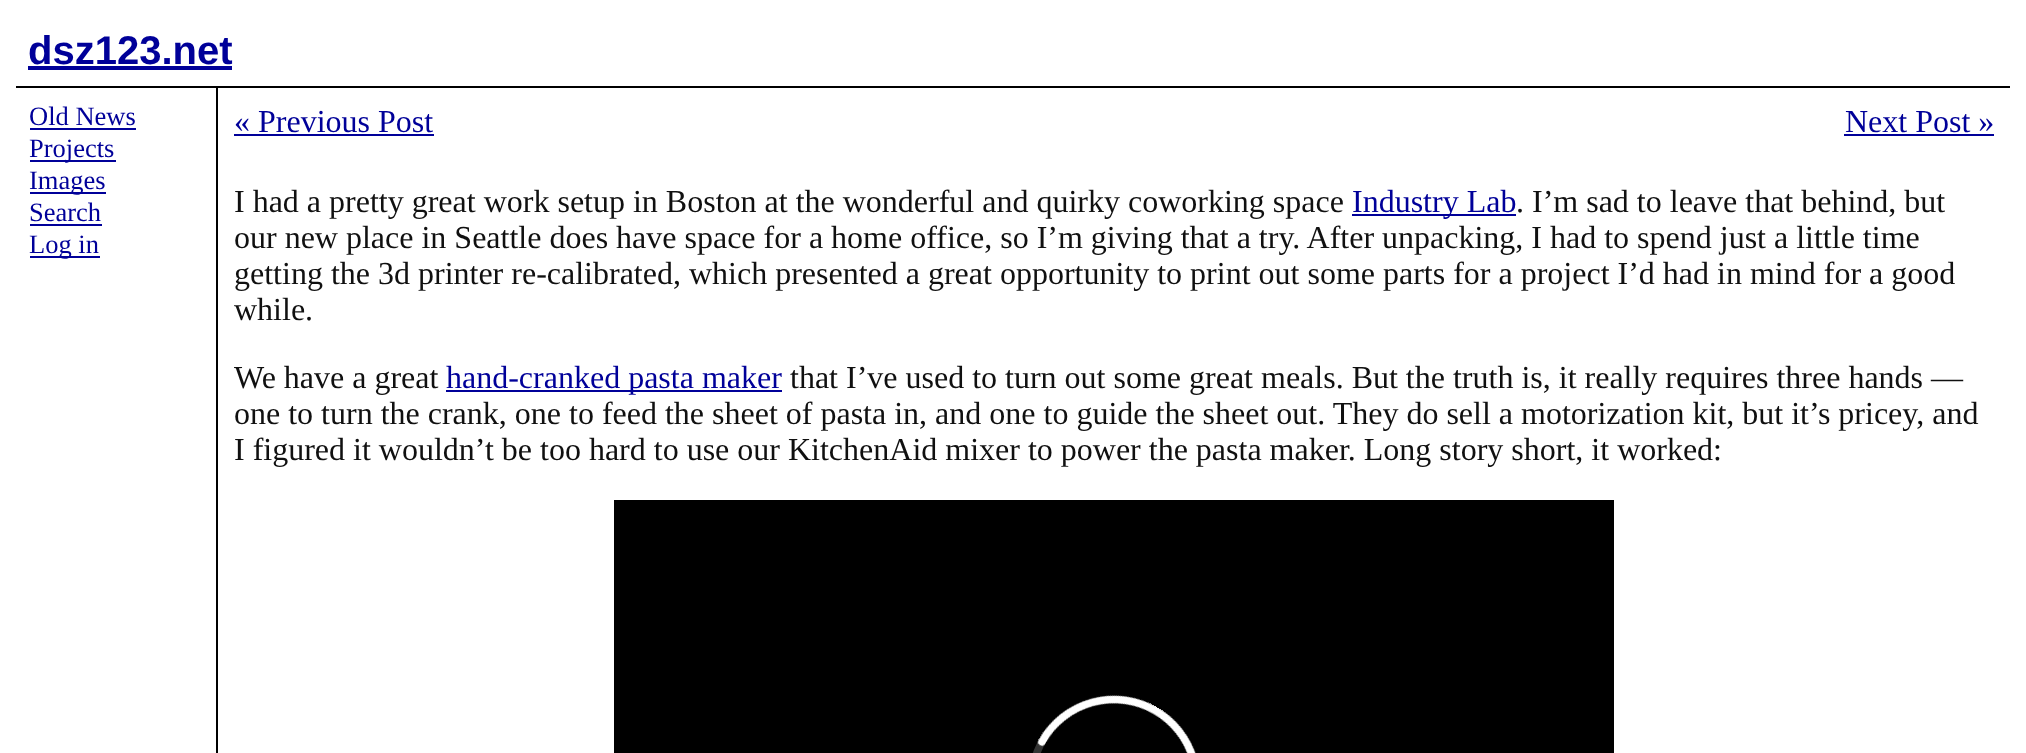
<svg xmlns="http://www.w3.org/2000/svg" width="2026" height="753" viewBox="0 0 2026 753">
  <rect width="100%" height="100%" fill="rgb(255,255,255)"/>
  <rect x="16" y="86" width="1994" height="2" fill="rgb(0,0,0)"/>
  <text x="28" y="64" font-family="Liberation Sans" font-size="40" font-weight="bold" fill="rgb(0,0,153)">dsz123.net</text>
  <rect x="28" y="66" width="204" height="4" fill="rgb(0,0,153)"/>
  <text x="29" y="125" font-family="Liberation Serif" font-size="26.5" fill="rgb(0,0,153)">Old News</text>
  <rect x="30" y="128" width="106" height="2" fill="rgb(0,0,153)"/>
  <rect x="30" y="160" width="86" height="2" fill="rgb(0,0,153)"/>
  <text x="29" y="157" font-family="Liberation Serif" font-size="26.5" fill="rgb(0,0,153)">Projects</text>
  <rect x="30" y="192" width="76" height="2" fill="rgb(0,0,153)"/>
  <g font-family="Liberation Serif" font-size="26.5" fill="rgb(0,0,153)">
    <text>
      <tspan x="29" y="189">Images</tspan>
      <tspan x="29" y="221">Search</tspan>
    </text>
  </g>
  <rect x="30" y="224" width="72" height="2" fill="rgb(0,0,153)"/>
  <rect x="30" y="256" width="70" height="2" fill="rgb(0,0,153)"/>
  <text x="29" y="253" font-family="Liberation Serif" font-size="26.5" fill="rgb(0,0,153)">Log in</text>
  <rect x="216" y="88" width="2" height="665" fill="rgb(0,0,0)"/>
  <text x="234" y="132" font-family="Liberation Serif" font-size="32" fill="rgb(0,0,153)">« Previous Post</text>
  <rect x="234" y="134" width="200" height="2" fill="rgb(0,0,153)"/>
  <text x="1845" y="132" font-family="Liberation Serif" font-size="32" fill="rgb(0,0,153)">Next Post »</text>
  <rect x="1844" y="134" width="150" height="2" fill="rgb(0,0,153)"/>
  <text x="234" y="212" font-family="Liberation Serif" font-size="32" fill="rgb(16,16,16)">I had a pretty great work setup in Boston at the wonderful and quirky coworking space</text>
  <rect x="1352" y="214" width="164" height="2" fill="rgb(0,0,153)"/>
  <text x="1352" y="212" font-family="Liberation Serif" font-size="32" fill="rgb(0,0,153)">Industry Lab</text>
  <g font-family="Liberation Serif" font-size="32" fill="rgb(16,16,16)">
    <text x="1516" y="212">. I’m sad to leave that behind, but</text>
    <text>
      <tspan x="234" y="248">our new place in Seattle does have space for a home office, so I’m giving that a try. After unpacking, I had to spend just a little time</tspan>
      <tspan x="234" y="284">getting the 3d printer re-calibrated, which presented a great opportunity to print out some parts for a project I’d had in mind for a good</tspan>
      <tspan x="234" y="320">while.</tspan>
    </text>
    <text x="234" y="388">We have a great</text>
  </g>
  <rect x="446" y="390" width="336" height="2" fill="rgb(0,0,153)"/>
  <text x="446" y="388" font-family="Liberation Serif" font-size="32" fill="rgb(0,0,153)">hand-cranked pasta maker</text>
  <g font-family="Liberation Serif" font-size="32" fill="rgb(16,16,16)">
    <text x="790" y="388">that I’ve used to turn out some great meals. But the truth is, it really requires three hands —</text>
    <text>
      <tspan x="234" y="424">one to turn the crank, one to feed the sheet of pasta in, and one to guide the sheet out. They do sell a motorization kit, but it’s pricey, and</tspan>
      <tspan x="234" y="460">I figured it wouldn’t be too hard to use our KitchenAid mixer to power the pasta maker. Long story short, it worked:</tspan>
    </text>
  </g>
  <image x="614" y="500" width="1000" height="253" href="pic1.png"/>
</svg>
